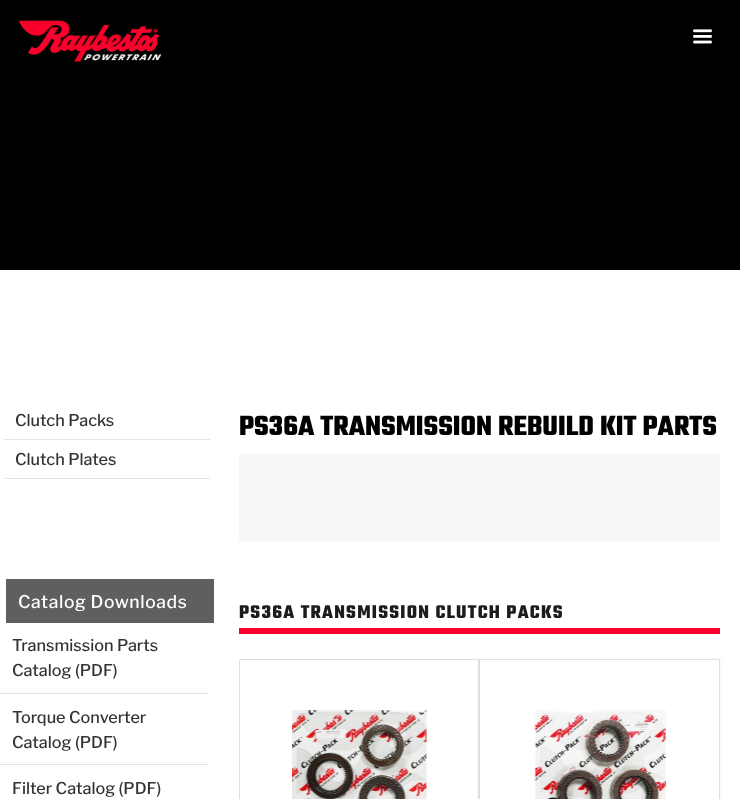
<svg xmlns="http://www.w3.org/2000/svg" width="740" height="799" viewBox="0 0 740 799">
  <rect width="100%" height="100%" fill="rgb(255,255,255)"/>
  <rect x="0" y="0" width="740" height="270" fill="rgb(0,0,0)"/>
  <image x="18" y="20" width="144" height="42" href="pic1.png"/>
  <image x="693" y="29" width="19" height="15" href="pic2.png"/>
  <rect x="4" y="439" width="206" height="1" fill="rgb(228,228,228)"/>
  <text x="15" y="426" font-family="Libre Franklin" font-size="16.25" font-weight="500" fill="rgb(51,51,51)">Clutch Packs</text>
  <rect x="4" y="478" width="206" height="1" fill="rgb(228,228,228)"/>
  <text x="15" y="465" font-family="Libre Franklin" font-size="16.25" font-weight="500" fill="rgb(51,51,51)">Clutch Plates</text>
  <rect x="6" y="579" width="208" height="44" fill="rgb(95,95,95)"/>
  <text x="18" y="608" font-family="Libre Franklin" font-size="17.5" font-weight="500" letter-spacing="0.6" fill="rgb(255,255,255)">Catalog Downloads</text>
  <rect x="0" y="693" width="208" height="1" fill="rgb(228,228,228)"/>
  <g font-family="Libre Franklin" font-size="16.25" font-weight="500" fill="rgb(51,51,51)">
    <text>
      <tspan x="12" y="651">Transmission Parts</tspan>
      <tspan x="12" y="676">Catalog (PDF)</tspan>
    </text>
  </g>
  <rect x="0" y="764" width="208" height="1" fill="rgb(228,228,228)"/>
  <g font-family="Libre Franklin" font-size="16.25" font-weight="500" fill="rgb(51,51,51)">
    <text>
      <tspan x="12" y="723">Torque Converter</tspan>
      <tspan x="12" y="748">Catalog (PDF)</tspan>
    </text>
    <text x="12" y="794">Filter Catalog (PDF)</text>
  </g>
  <text x="239" y="435" font-family="Teko" font-size="30" font-weight="bold" fill="rgb(1,1,1)">PS36A TRANSMISSION REBUILD KIT PARTS</text>
  <rect x="239" y="454" width="481" height="87" fill="rgb(247,247,247)"/>
  <rect x="239" y="628" width="481" height="6" fill="rgb(250,1,45)"/>
  <text x="239" y="618" font-family="Teko" font-size="20" font-weight="bold" letter-spacing="1.25" fill="rgb(28,28,28)">PS36A TRANSMISSION CLUTCH PACKS</text>
  <rect x="239.5" y="659.5" width="239" height="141" rx="0.5" fill="none" stroke="rgb(223,223,223)"/>
  <image x="292" y="710" width="135" height="89" href="pic3.png"/>
  <rect x="479" y="660" width="241" height="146" rx="1" fill="rgba(219,219,219,0.43)" filter="blur(2px)"/>
  <rect x="479.5" y="659.5" width="240" height="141" rx="0.5" fill="rgb(255,255,255)" stroke="rgb(223,223,223)"/>
  <image x="534" y="710" width="132" height="89" href="pic4.png"/>
</svg>
